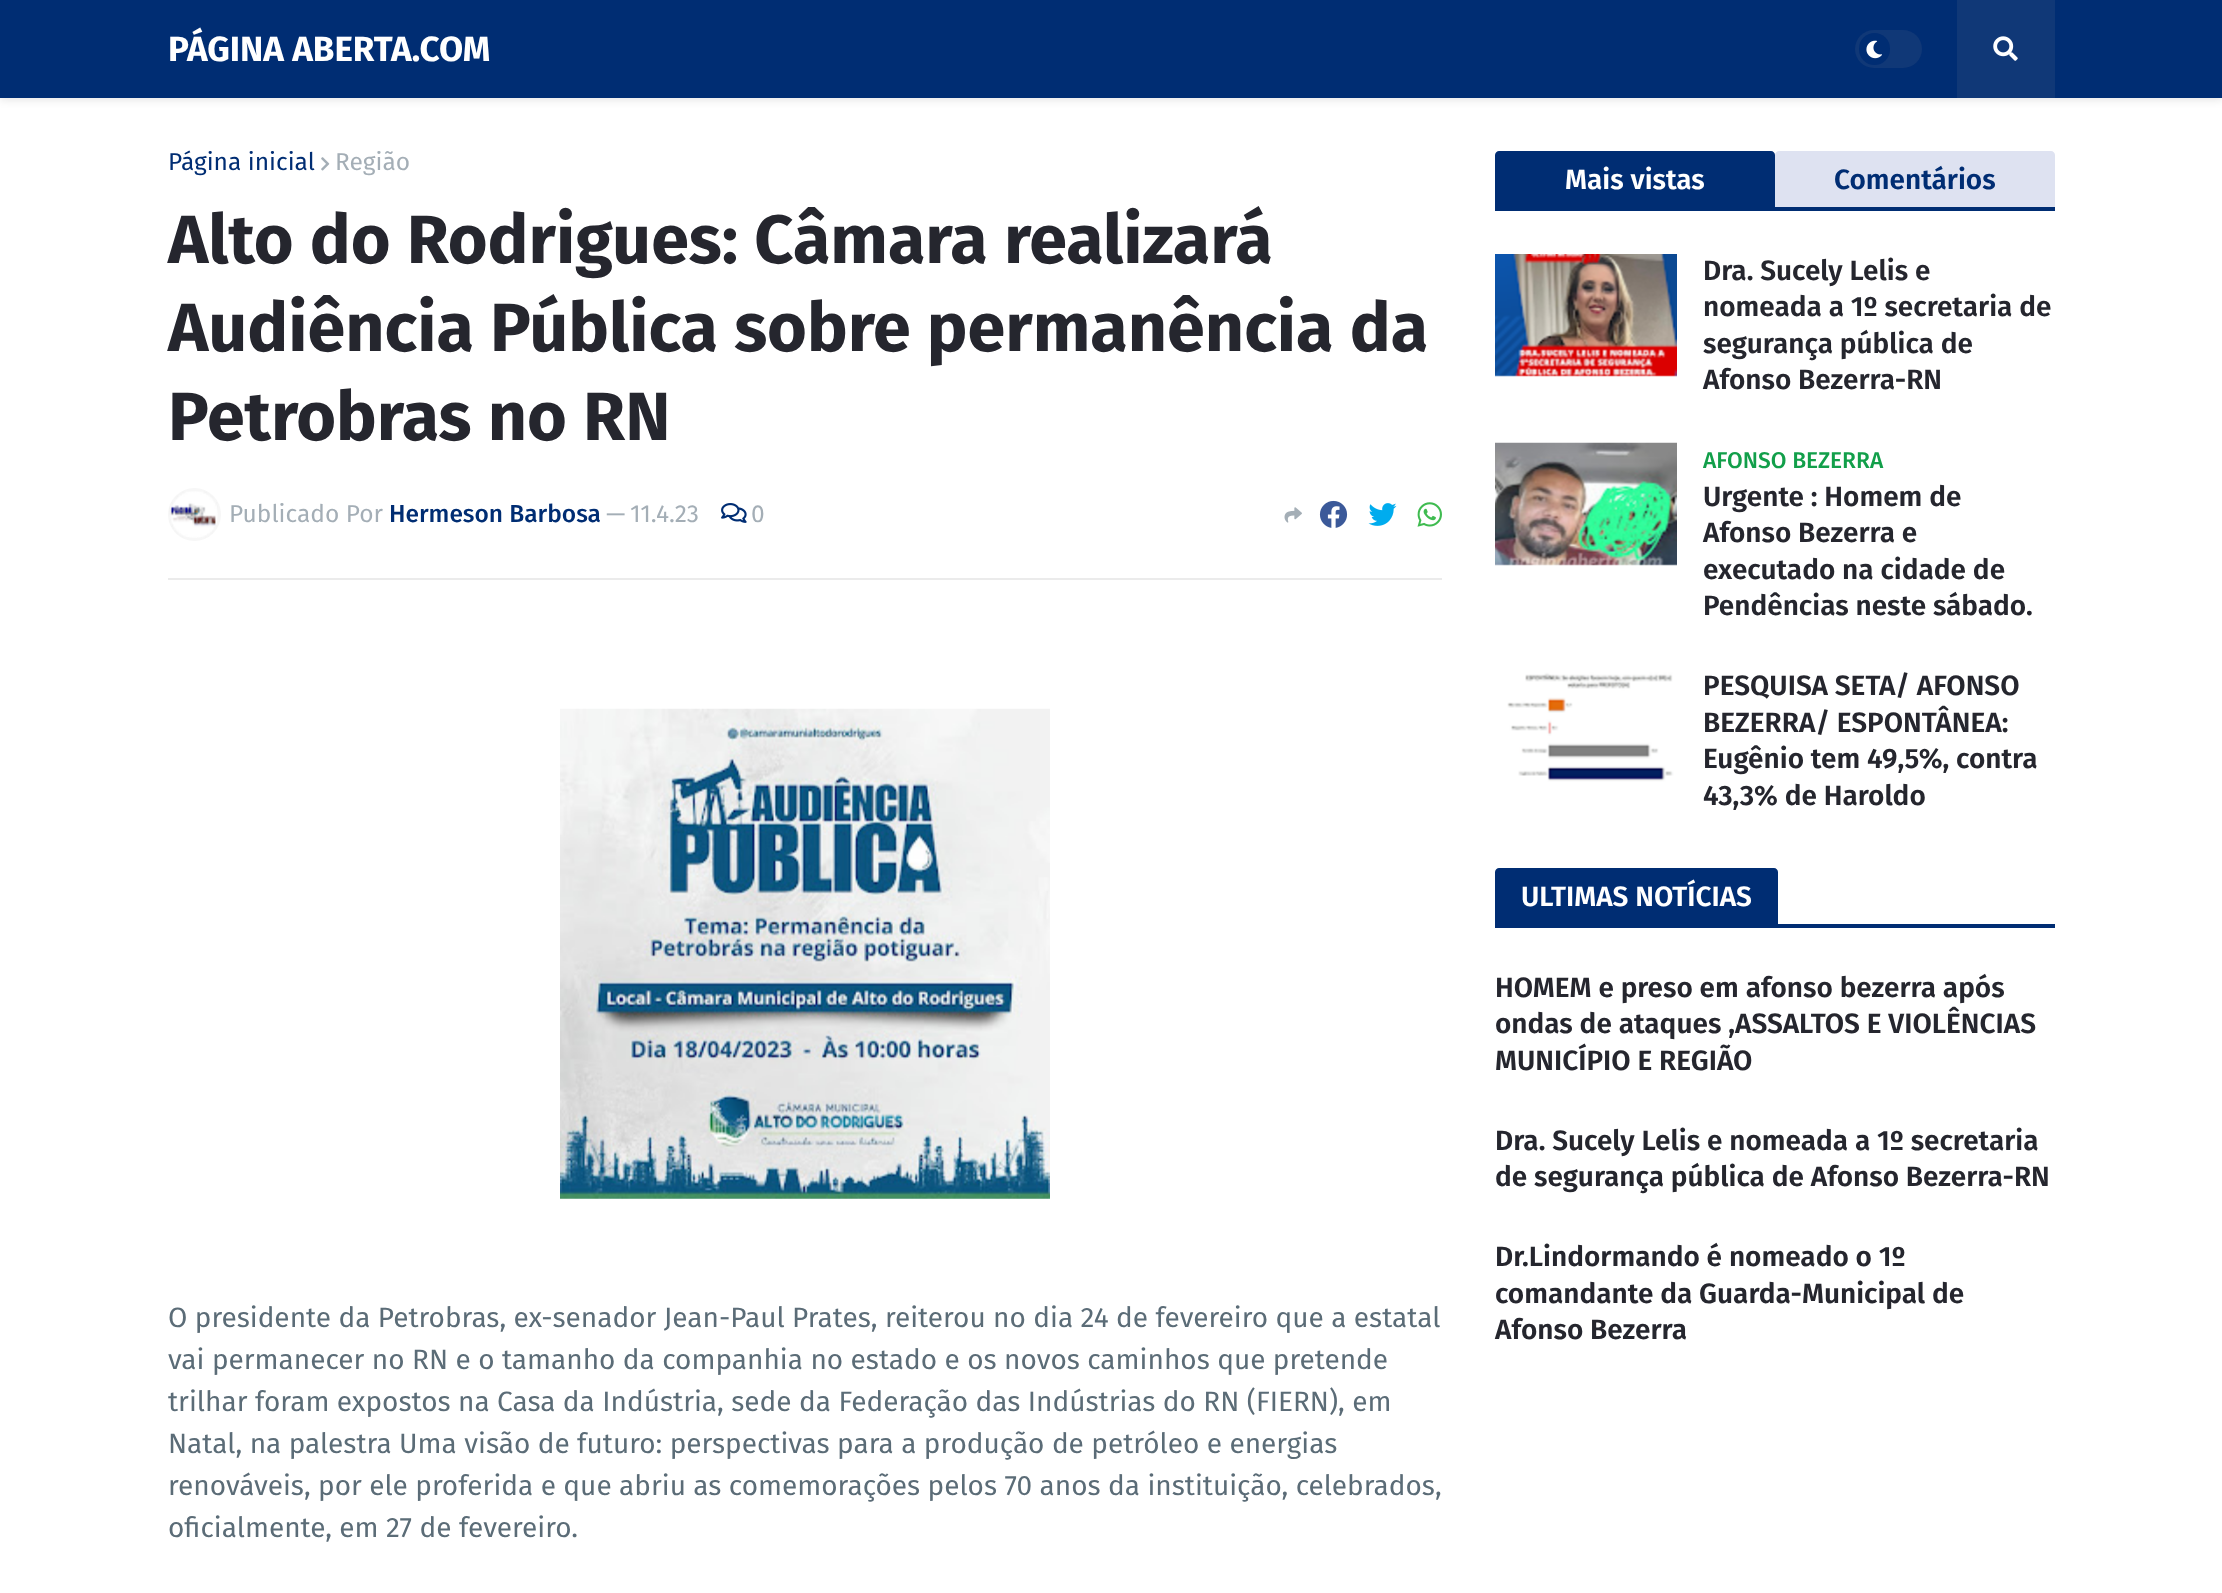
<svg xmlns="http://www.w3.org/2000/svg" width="2222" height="1593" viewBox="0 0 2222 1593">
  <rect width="100%" height="100%" fill="rgb(255,255,255)"/>
  <rect x="0" y="2" width="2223" height="98" fill="rgba(0,0,0,0.1)" filter="blur(4.5px)"/>
  <rect x="0" y="0" width="2222" height="98" fill="rgb(0,45,115)"/>
  <text x="168" y="61" font-family="Fira Sans" font-size="35" font-weight="bold" fill="rgb(255,255,255)">PÁGINA ABERTA.COM</text>
  <rect x="1855" y="30" width="67" height="38" rx="19" fill="rgb(16,56,119)"/>
  <rect x="1859" y="33" width="31" height="32" rx="15.5" fill="rgb(0,45,115)"/>
  <image x="1866" y="40" width="16" height="19" href="pic1.png"/>
  <rect x="1957" y="0" width="98" height="98" fill="rgb(16,56,119)"/>
  <image x="1993" y="36" width="25" height="25" href="pic2.png"/>
  <rect x="168" y="578" width="1274" height="2" fill="rgb(235,235,235)"/>
  <text x="168" y="170" font-family="Fira Sans" font-size="24.5" fill="rgb(0,45,115)">Página inicial</text>
  <image x="321" y="157" width="9" height="14" href="pic3.png"/>
  <text x="335" y="170" font-family="Fira Sans" font-size="24.5" fill="rgb(164,174,182)">Região</text>
  <g font-family="Fira Sans" font-size="68.25" font-weight="bold" fill="rgb(37,38,46)">
    <text>
      <tspan x="168" y="263">Alto do Rodrigues: Câmara realizará</tspan>
      <tspan x="168" y="351">Audiência Pública sobre permanência da</tspan>
      <tspan x="168" y="440">Petrobras no RN</tspan>
    </text>
  </g>
  <circle cx="194.5" cy="514.5" r="26.5" fill="rgb(247,247,247)"/>
  <image x="169" y="491" width="49" height="47" href="pic4.png"/>
  <text x="229" y="522" font-family="Fira Sans" font-size="24.5" fill="rgb(164,174,182)">Publicado Por</text>
  <text x="389" y="522" font-family="Fira Sans" font-size="24.5" font-weight="500" fill="rgb(0,45,115)">Hermeson Barbosa</text>
  <g font-family="Fira Sans" font-size="24.5" fill="rgb(164,174,182)">
    <text x="606" y="522">—</text>
    <text x="630" y="522">11.4.23</text>
  </g>
  <image x="721" y="503" width="26" height="20" href="pic5.png"/>
  <text x="751" y="522" font-family="Fira Sans" font-size="24.5" fill="rgb(164,174,182)">0</text>
  <image x="1284" y="507" width="18" height="16" href="pic6.png"/>
  <image x="1319" y="500" width="29" height="28" href="pic7.png"/>
  <image x="1368" y="503" width="29" height="23" href="pic8.png"/>
  <image x="1417" y="502" width="25" height="25" href="pic9.png"/>
  <image x="560" y="708" width="490" height="491" href="pic10.png"/>
  <g font-family="Fira Sans" font-size="28" fill="rgb(91,108,119)">
    <text>
      <tspan x="168" y="1327">O presidente da Petrobras, ex-senador Jean-Paul Prates, reiterou no dia 24 de fevereiro que a estatal</tspan>
      <tspan x="168" y="1369">vai permanecer no RN e o tamanho da companhia no estado e os novos caminhos que pretende</tspan>
      <tspan x="168" y="1411">trilhar foram expostos na Casa da Indústria, sede da Federação das Indústrias do RN (FIERN), em</tspan>
      <tspan x="168" y="1453">Natal, na palestra Uma visão de futuro: perspectivas para a produção de petróleo e energias</tspan>
      <tspan x="168" y="1495">renováveis, por ele proferida e que abriu as comemorações pelos 70 anos da instituição, celebrados,</tspan>
      <tspan x="168" y="1537">oficialmente, em 27 de fevereiro.</tspan>
    </text>
  </g>
  <rect x="1495" y="207" width="560" height="4" fill="rgb(0,45,115)"/>
  <path d="M1499 151H1771C1773 151 1775 153 1775 155V207H1495V155C1495 153 1497 151 1499 151Z" fill="rgb(0,45,115)"/>
  <text x="1565" y="189" font-family="Fira Sans" font-size="28" font-weight="600" fill="rgb(255,255,255)">Mais vistas</text>
  <path d="M1779 151H2051C2053 151 2055 153 2055 155V207H1775V155C1775 153 1777 151 1779 151Z" fill="rgb(222,226,241)"/>
  <text x="1834" y="189" font-family="Fira Sans" font-size="28" font-weight="600" fill="rgb(0,45,115)">Comentários</text>
  <image x="1495" y="254" width="182" height="123" href="pic11.png"/>
  <g font-family="Fira Sans" font-size="28" font-weight="600" fill="rgb(37,38,46)">
    <text>
      <tspan x="1703" y="280">Dra. Sucely Lelis e</tspan>
      <tspan x="1703" y="316">nomeada a 1º secretaria de</tspan>
      <tspan x="1703" y="353">segurança pública de</tspan>
      <tspan x="1703" y="389">Afonso Bezerra-RN</tspan>
    </text>
  </g>
  <image x="1495" y="442" width="182" height="124" href="pic12.png"/>
  <text x="1703" y="468" font-family="Fira Sans" font-size="22.75" font-weight="500" fill="rgb(18,159,74)">AFONSO BEZERRA</text>
  <g font-family="Fira Sans" font-size="28" font-weight="600" fill="rgb(37,38,46)">
    <text>
      <tspan x="1703" y="506">Urgente : Homem de</tspan>
      <tspan x="1703" y="542">Afonso Bezerra e</tspan>
      <tspan x="1703" y="579">executado na cidade de</tspan>
      <tspan x="1703" y="615">Pendências neste sábado.</tspan>
    </text>
  </g>
  <image x="1495" y="669" width="182" height="122" href="pic13.png"/>
  <g font-family="Fira Sans" font-size="28" font-weight="600" fill="rgb(37,38,46)">
    <text>
      <tspan x="1703" y="695">PESQUISA SETA/ AFONSO</tspan>
      <tspan x="1703" y="732">BEZERRA/ ESPONTÂNEA:</tspan>
      <tspan x="1703" y="768">Eugênio tem 49,5%, contra</tspan>
      <tspan x="1703" y="805">43,3% de Haroldo</tspan>
    </text>
  </g>
  <rect x="1778" y="924" width="277" height="4" fill="rgb(0,45,115)"/>
  <path d="M1499 868H1774C1776 868 1778 870 1778 872V928H1495V872C1495 870 1497 868 1499 868Z" fill="rgb(0,45,115)"/>
  <text x="1521" y="906" font-family="Fira Sans" font-size="28" font-weight="600" fill="rgb(255,255,255)">ULTIMAS NOTÍCIAS</text>
  <g font-family="Fira Sans" font-size="28" font-weight="600" fill="rgb(37,38,46)">
    <text>
      <tspan x="1495" y="997">HOMEM e preso em afonso bezerra após</tspan>
      <tspan x="1495" y="1033">ondas de ataques ,ASSALTOS E VIOLÊNCIAS</tspan>
      <tspan x="1495" y="1070">MUNICÍPIO E REGIÃO</tspan>
    </text>
    <text>
      <tspan x="1495" y="1150">Dra. Sucely Lelis e nomeada a 1º secretaria</tspan>
      <tspan x="1495" y="1186">de segurança pública de Afonso Bezerra-RN</tspan>
    </text>
    <text>
      <tspan x="1495" y="1266">Dr.Lindormando é nomeado o 1º</tspan>
      <tspan x="1495" y="1303">comandante da Guarda-Municipal de</tspan>
      <tspan x="1495" y="1339">Afonso Bezerra</tspan>
    </text>
  </g>
</svg>
